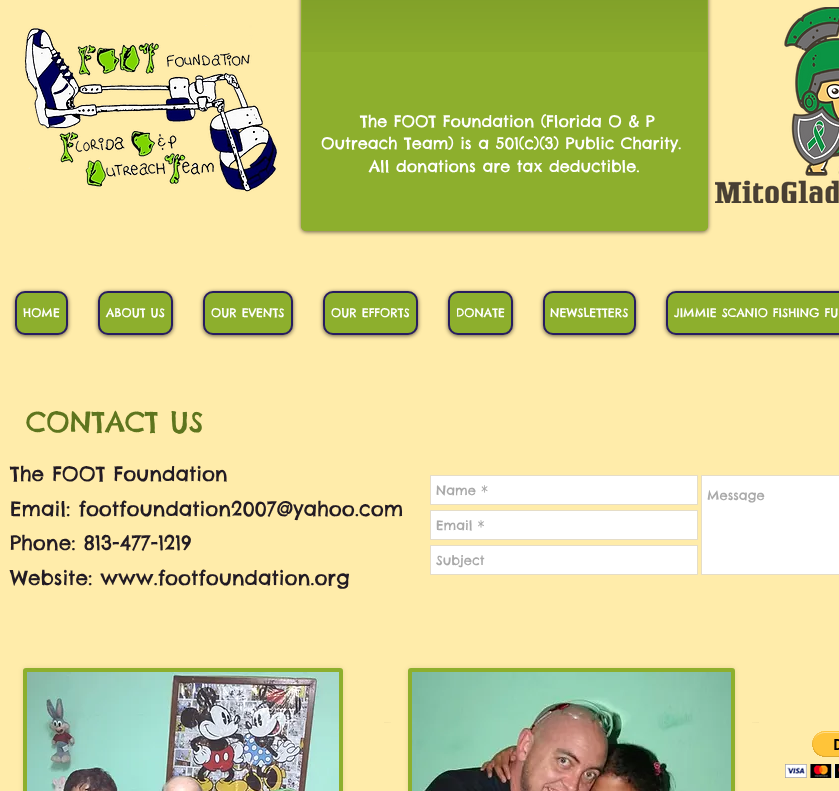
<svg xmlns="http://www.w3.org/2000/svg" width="839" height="791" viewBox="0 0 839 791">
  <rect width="100%" height="100%" fill="rgb(255,236,170)"/>
  <image x="23" y="25" width="255" height="173" href="pic1.png"/>
  <rect x="301" y="-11" width="407" height="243" rx="5" fill="rgba(0,0,0,0.6)" filter="blur(2px)"/>
  <rect x="301" y="-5" width="407" height="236" rx="5" fill="rgb(141,175,45)"/>
  <image x="302" y="0" width="405" height="52" href="pic2.png"/>
  <rect x="301.5" y="-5.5" width="406" height="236" rx="4.5" fill="none" stroke="rgb(141,175,45)"/>
  <image x="715" y="7" width="124" height="196" href="pic3.png"/>
  <g font-family="Chelsea Market" font-size="16" fill="rgb(255,255,255)">
    <text x="360" y="127">The FOOT Foundation (Florida O &amp; P</text>
    <text x="321" y="149">Outreach Team) is a 501(c)(3) Public Charity.</text>
    <text x="369" y="172">All donations are tax deductible.</text>
  </g>
  <rect x="15" y="292" width="53" height="44" rx="10" fill="rgba(0,0,0,0.6)" filter="blur(2px)"/>
  <rect x="16" y="292" width="51" height="42" rx="9" fill="rgb(141,175,45)" stroke="rgb(39,29,96)" stroke-width="2"/>
  <text x="23" y="317" font-family="Chelsea Market" font-size="12" fill="rgb(255,255,255)">HOME</text>
  <rect x="98" y="292" width="75" height="44" rx="10" fill="rgba(0,0,0,0.6)" filter="blur(2px)"/>
  <rect x="99" y="292" width="73" height="42" rx="9" fill="rgb(141,175,45)" stroke="rgb(39,29,96)" stroke-width="2"/>
  <text x="106" y="317" font-family="Chelsea Market" font-size="12" fill="rgb(255,255,255)">ABOUT US</text>
  <rect x="203" y="292" width="90" height="44" rx="10" fill="rgba(0,0,0,0.6)" filter="blur(2px)"/>
  <rect x="204" y="292" width="88" height="42" rx="9" fill="rgb(141,175,45)" stroke="rgb(39,29,96)" stroke-width="2"/>
  <text x="211" y="317" font-family="Chelsea Market" font-size="12" fill="rgb(255,255,255)">OUR EVENTS</text>
  <rect x="323" y="292" width="95" height="44" rx="10" fill="rgba(0,0,0,0.6)" filter="blur(2px)"/>
  <rect x="324" y="292" width="93" height="42" rx="9" fill="rgb(141,175,45)" stroke="rgb(39,29,96)" stroke-width="2"/>
  <text x="331" y="317" font-family="Chelsea Market" font-size="12" fill="rgb(255,255,255)">OUR EFFORTS</text>
  <rect x="448" y="292" width="65" height="44" rx="10" fill="rgba(0,0,0,0.6)" filter="blur(2px)"/>
  <rect x="449" y="292" width="63" height="42" rx="9" fill="rgb(141,175,45)" stroke="rgb(39,29,96)" stroke-width="2"/>
  <text x="456" y="317" font-family="Chelsea Market" font-size="12" fill="rgb(255,255,255)">DONATE</text>
  <rect x="543" y="292" width="93" height="44" rx="10" fill="rgba(0,0,0,0.6)" filter="blur(2px)"/>
  <rect x="544" y="292" width="91" height="42" rx="9" fill="rgb(141,175,45)" stroke="rgb(39,29,96)" stroke-width="2"/>
  <text x="550" y="317" font-family="Chelsea Market" font-size="12" fill="rgb(255,255,255)">NEWSLETTERS</text>
  <rect x="666" y="292" width="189" height="44" rx="10" fill="rgba(0,0,0,0.6)" filter="blur(2px)"/>
  <rect x="667" y="292" width="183" height="42" rx="9" fill="rgb(141,175,45)" stroke="rgb(39,29,96)" stroke-width="2"/>
  <text x="674" y="317" font-family="Chelsea Market" font-size="12" fill="rgb(255,255,255)">JIMMIE SCANIO FISHING FU</text>
  <text x="26" y="432" font-family="Chelsea Market" font-size="28" fill="rgb(94,117,30)">CONTACT US</text>
  <g font-family="Chelsea Market" font-size="20" fill="rgb(34,27,35)">
    <text>
      <tspan x="10" y="481">The FOOT Foundation</tspan>
      <tspan x="10" y="516">Email: footfoundation2007@yahoo.com</tspan>
      <tspan x="10" y="550">Phone: 813-477-1219</tspan>
      <tspan x="10" y="585">Website: www.footfoundation.org</tspan>
    </text>
  </g>
  <rect x="430.5" y="475.5" width="267" height="29" fill="rgb(255,255,255)" stroke="rgb(229,221,200)"/>
  <text x="436" y="495" font-family="Chelsea Market" font-size="13" fill="rgb(169,169,169)">Name *</text>
  <rect x="701.5" y="475.5" width="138" height="99" fill="rgb(255,255,255)" stroke="rgb(229,221,200)"/>
  <text x="707" y="500" font-family="Chelsea Market" font-size="13" fill="rgb(169,169,169)">Message</text>
  <rect x="430.5" y="510.5" width="267" height="29" fill="rgb(255,255,255)" stroke="rgb(229,221,200)"/>
  <text x="436" y="530" font-family="Chelsea Market" font-size="13" fill="rgb(169,169,169)">Email *</text>
  <rect x="430.5" y="545.5" width="267" height="29" fill="rgb(255,255,255)" stroke="rgb(229,221,200)"/>
  <text x="436" y="565" font-family="Chelsea Market" font-size="13" fill="rgb(169,169,169)">Subject</text>
  <rect x="23" y="668" width="320" height="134" rx="3" fill="rgba(0,0,0,0.1)" filter="blur(2.5px)"/>
  <rect x="25" y="670" width="316" height="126" rx="1" fill="none" stroke="rgb(141,175,45)" stroke-width="4"/>
  <image x="27" y="672" width="312" height="119" href="pic4.png"/>
  <image x="384" y="722" width="7" height="1" href="pic5.png"/>
  <rect x="408" y="668" width="327" height="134" rx="3" fill="rgba(0,0,0,0.1)" filter="blur(2.5px)"/>
  <rect x="410" y="670" width="323" height="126" rx="1" fill="none" stroke="rgb(141,175,45)" stroke-width="4"/>
  <image x="412" y="672" width="319" height="119" href="pic6.png"/>
  <image x="752" y="722" width="7" height="1" href="pic7.png"/>
  <image x="785" y="731" width="54" height="47" href="pic8.png"/>
</svg>
